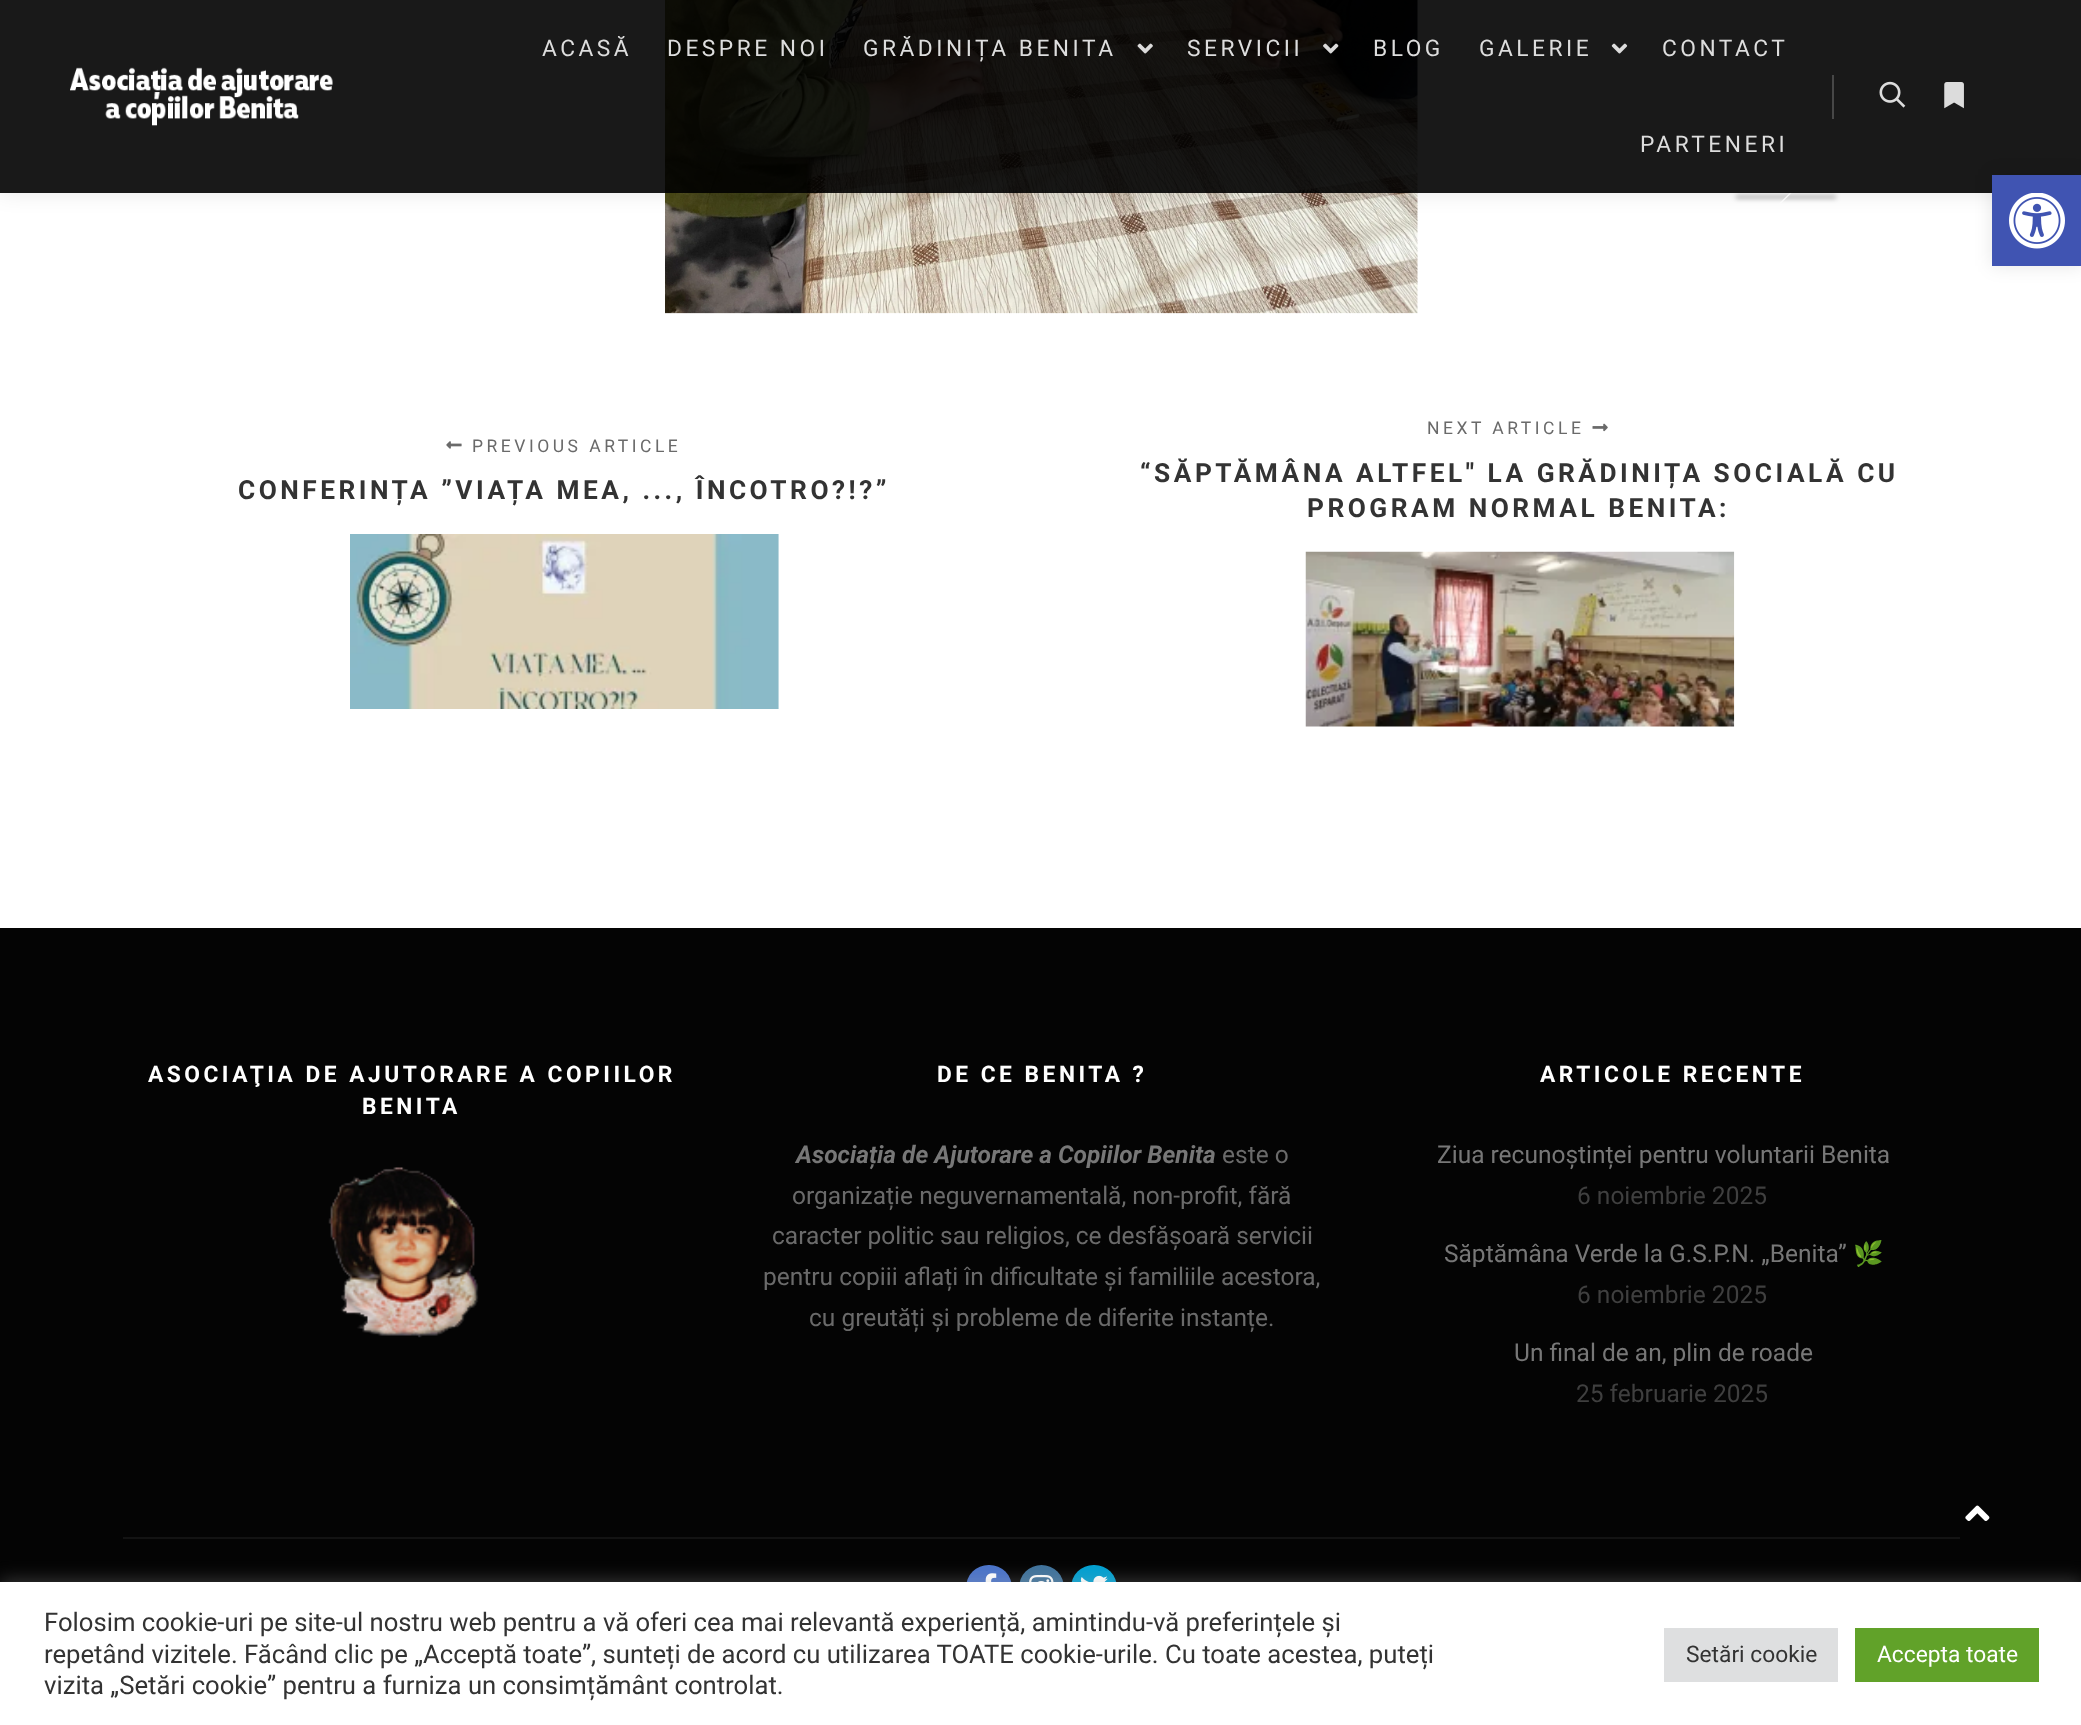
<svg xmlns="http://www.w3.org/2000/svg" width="2081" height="1725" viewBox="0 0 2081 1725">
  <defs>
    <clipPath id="clip1"><path d="M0 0H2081V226H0ZM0 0H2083V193H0Z" clip-rule="evenodd"/></clipPath>
  </defs>
  <rect width="100%" height="100%" fill="rgb(255,255,255)"/>
  <image x="665" y="0" width="753" height="314" href="pic7.png"/>
  <rect x="1736" y="196" width="100" height="2" fill="rgba(0,0,0,0.5)" filter="blur(2.5px)"/>
  <path d="M1750 232L1821 162L1822 163L1751 233Z" fill="rgb(255,255,255)"/>
  <g clip-path="url(#clip1)">
    <rect x="0" y="0" width="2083" height="193" fill="rgba(0,0,0,0.09)" filter="blur(10.5px)"/>
  </g>
  <rect x="0" y="0" width="2081" height="193" fill="rgba(0,0,0,0.9)"/>
  <image x="70" y="67" width="263" height="59" href="pic1.png"/>
  <g font-family="Roboto" font-size="22.75" letter-spacing="3.5" fill="rgb(221,221,221)">
    <text x="542" y="56">ACASĂ</text>
    <text x="667" y="56">DESPRE NOI</text>
    <text x="863" y="56">GRĂDINIȚA BENITA</text>
  </g>
  <image x="1137" y="43" width="16" height="11" href="pic2.png"/>
  <text x="1187" y="56" font-family="Roboto" font-size="22.75" letter-spacing="3.5" fill="rgb(221,221,221)">SERVICII</text>
  <image x="1323" y="43" width="16" height="11" href="pic3.png"/>
  <g font-family="Roboto" font-size="22.75" letter-spacing="3.5" fill="rgb(221,221,221)">
    <text x="1373" y="56">BLOG</text>
    <text x="1479" y="56">GALERIE</text>
  </g>
  <image x="1611" y="43" width="17" height="11" href="pic4.png"/>
  <g font-family="Roboto" font-size="22.75" letter-spacing="3.5" fill="rgb(221,221,221)">
    <text x="1662" y="56">CONTACT</text>
    <text x="1640" y="152">PARTENERI</text>
  </g>
  <rect x="1832" y="75" width="2" height="44" fill="rgb(71,71,71)"/>
  <image x="1879" y="81" width="27" height="27" href="pic5.png"/>
  <image x="1944" y="82" width="20" height="27" href="pic6.png"/>
  <image x="446" y="441" width="16" height="8" href="pic8.png"/>
  <text x="472" y="452" font-family="Roboto" font-size="17.5" letter-spacing="3.5" fill="rgb(106,106,106)">PREVIOUS ARTICLE</text>
  <text x="238" y="499" font-family="Roboto" font-size="26.25" font-weight="bold" letter-spacing="3.5" fill="rgb(51,51,51)">CONFERINȚA ”VIAȚA MEA, ..., ÎNCOTRO?!?”</text>
  <image x="350" y="534" width="429" height="175" href="pic9.png"/>
  <text x="1427" y="434" font-family="Roboto" font-size="17.5" letter-spacing="3.5" fill="rgb(106,106,106)">NEXT ARTICLE</text>
  <image x="1592" y="423" width="16" height="9" href="pic10.png"/>
  <g font-family="Roboto" font-size="26.25" font-weight="bold" letter-spacing="3.5" fill="rgb(51,51,51)">
    <text x="1140" y="482">“SĂPTĂMÂNA ALTFEL" LA GRĂDINIȚA SOCIALĂ CU</text>
    <text x="1307" y="517">PROGRAM NORMAL BENITA:</text>
  </g>
  <image x="1305" y="551" width="430" height="176" href="pic11.png"/>
  <rect x="0" y="928" width="2081" height="654" fill="rgb(4,4,4)"/>
  <g font-family="Roboto" font-size="22.75" font-weight="bold" letter-spacing="3.5" fill="rgb(255,255,255)">
    <text x="148" y="1082">ASOCIAŢIA DE AJUTORARE A COPIILOR</text>
    <text x="362" y="1114">BENITA</text>
  </g>
  <image x="328" y="1167" width="151" height="171" href="pic12.png"/>
  <text x="937" y="1082" font-family="Roboto" font-size="22.75" font-weight="bold" letter-spacing="3.5" fill="rgb(255,255,255)">DE CE BENITA ?</text>
  <text x="796" y="1163" font-family="Roboto" font-size="24.5" font-weight="bold" font-style="italic" fill="rgb(119,119,119)">Asociația de Ajutorare a Copiilor Benita</text>
  <g font-family="Roboto" font-size="24.5" fill="rgb(106,106,106)">
    <text x="1222" y="1163">este o</text>
    <text x="792" y="1204">organizație neguvernamentală, non-profit, fără</text>
    <text x="772" y="1244">caracter politic sau religios, ce desfășoară servicii</text>
    <text x="763" y="1285">pentru copiii aflați în dificultate și familiile acestora,</text>
    <text x="809" y="1326">cu greutăți și probleme de diferite instanțe.</text>
  </g>
  <text x="1540" y="1082" font-family="Roboto" font-size="22.75" font-weight="bold" letter-spacing="3.5" fill="rgb(255,255,255)">ARTICOLE RECENTE</text>
  <text x="1437" y="1163" font-family="Roboto" font-size="24.5" fill="rgb(119,119,119)">Ziua recunoștinței pentru voluntarii Benita</text>
  <text x="1577" y="1204" font-family="Roboto" font-size="24.5" fill="rgb(63,63,63)">6 noiembrie 2025</text>
  <text x="1444" y="1262" font-family="Roboto" font-size="24.5" fill="rgb(119,119,119)">Săptămâna Verde la G.S.P.N. „Benita”</text>
  <text x="1853" y="1262" font-family="Noto Color Emoji" font-size="24.5" fill="rgb(119,119,119)">🌿</text>
  <text x="1577" y="1303" font-family="Roboto" font-size="24.5" fill="rgb(63,63,63)">6 noiembrie 2025</text>
  <text x="1514" y="1361" font-family="Roboto" font-size="24.5" fill="rgb(119,119,119)">Un final de an, plin de roade</text>
  <text x="1576" y="1402" font-family="Roboto" font-size="24.5" fill="rgb(63,63,63)">25 februarie 2025</text>
  <rect x="123" y="1537" width="1837" height="2" fill="rgb(19,19,19)"/>
  <rect x="966" y="1565" width="46" height="45" rx="22.5" fill="rgb(74,115,201)"/>
  <image x="985" y="1573" width="12" height="9" href="pic13.png"/>
  <circle cx="1041.5" cy="1587.5" r="22.5" fill="rgb(63,114,155)"/>
  <image x="1029" y="1574" width="25" height="8" href="pic14.png"/>
  <rect x="1071" y="1565" width="46" height="45" rx="22.5" fill="rgb(0,160,209)"/>
  <image x="1080" y="1575" width="28" height="7" href="pic15.png"/>
  <image x="1965" y="1505" width="25" height="16" href="pic16.png"/>
  <rect x="1992" y="175" width="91" height="91" fill="rgba(0,0,0,0.1)" filter="blur(9px)"/>
  <rect x="1992" y="175" width="89" height="91" fill="rgb(64,84,178)"/>
  <image x="2009" y="193" width="56" height="56" href="pic17.png"/>
  <rect x="0" y="1580" width="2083" height="144" fill="rgba(172,171,171,0.3)" filter="blur(9px)"/>
  <rect x="0" y="1582" width="2081" height="143" fill="rgb(255,255,255)"/>
  <g font-family="Roboto" font-size="25.67" fill="rgb(51,51,51)">
    <text>
      <tspan x="44" y="1631">Folosim cookie-uri pe site-ul nostru web pentru a vă oferi cea mai relevantă experiență, amintindu-vă preferințele și</tspan>
      <tspan x="44" y="1663">repetând vizitele. Făcând clic pe „Acceptă toate”, sunteți de acord cu utilizarea TOATE cookie-urile. Cu toate acestea, puteți</tspan>
      <tspan x="44" y="1694">vizita „Setări cookie” pentru a furniza un consimțământ controlat.</tspan>
    </text>
  </g>
  <rect x="1664" y="1628" width="174" height="54" fill="rgb(222,223,224)"/>
  <text x="1686" y="1662" font-family="Roboto" font-size="22.75" fill="rgb(51,51,51)">Setări cookie</text>
  <rect x="1855" y="1628" width="184" height="54" fill="rgb(97,162,41)"/>
  <text x="1877" y="1662" font-family="Roboto" font-size="22.75" fill="rgb(255,255,255)">Accepta toate</text>
</svg>
